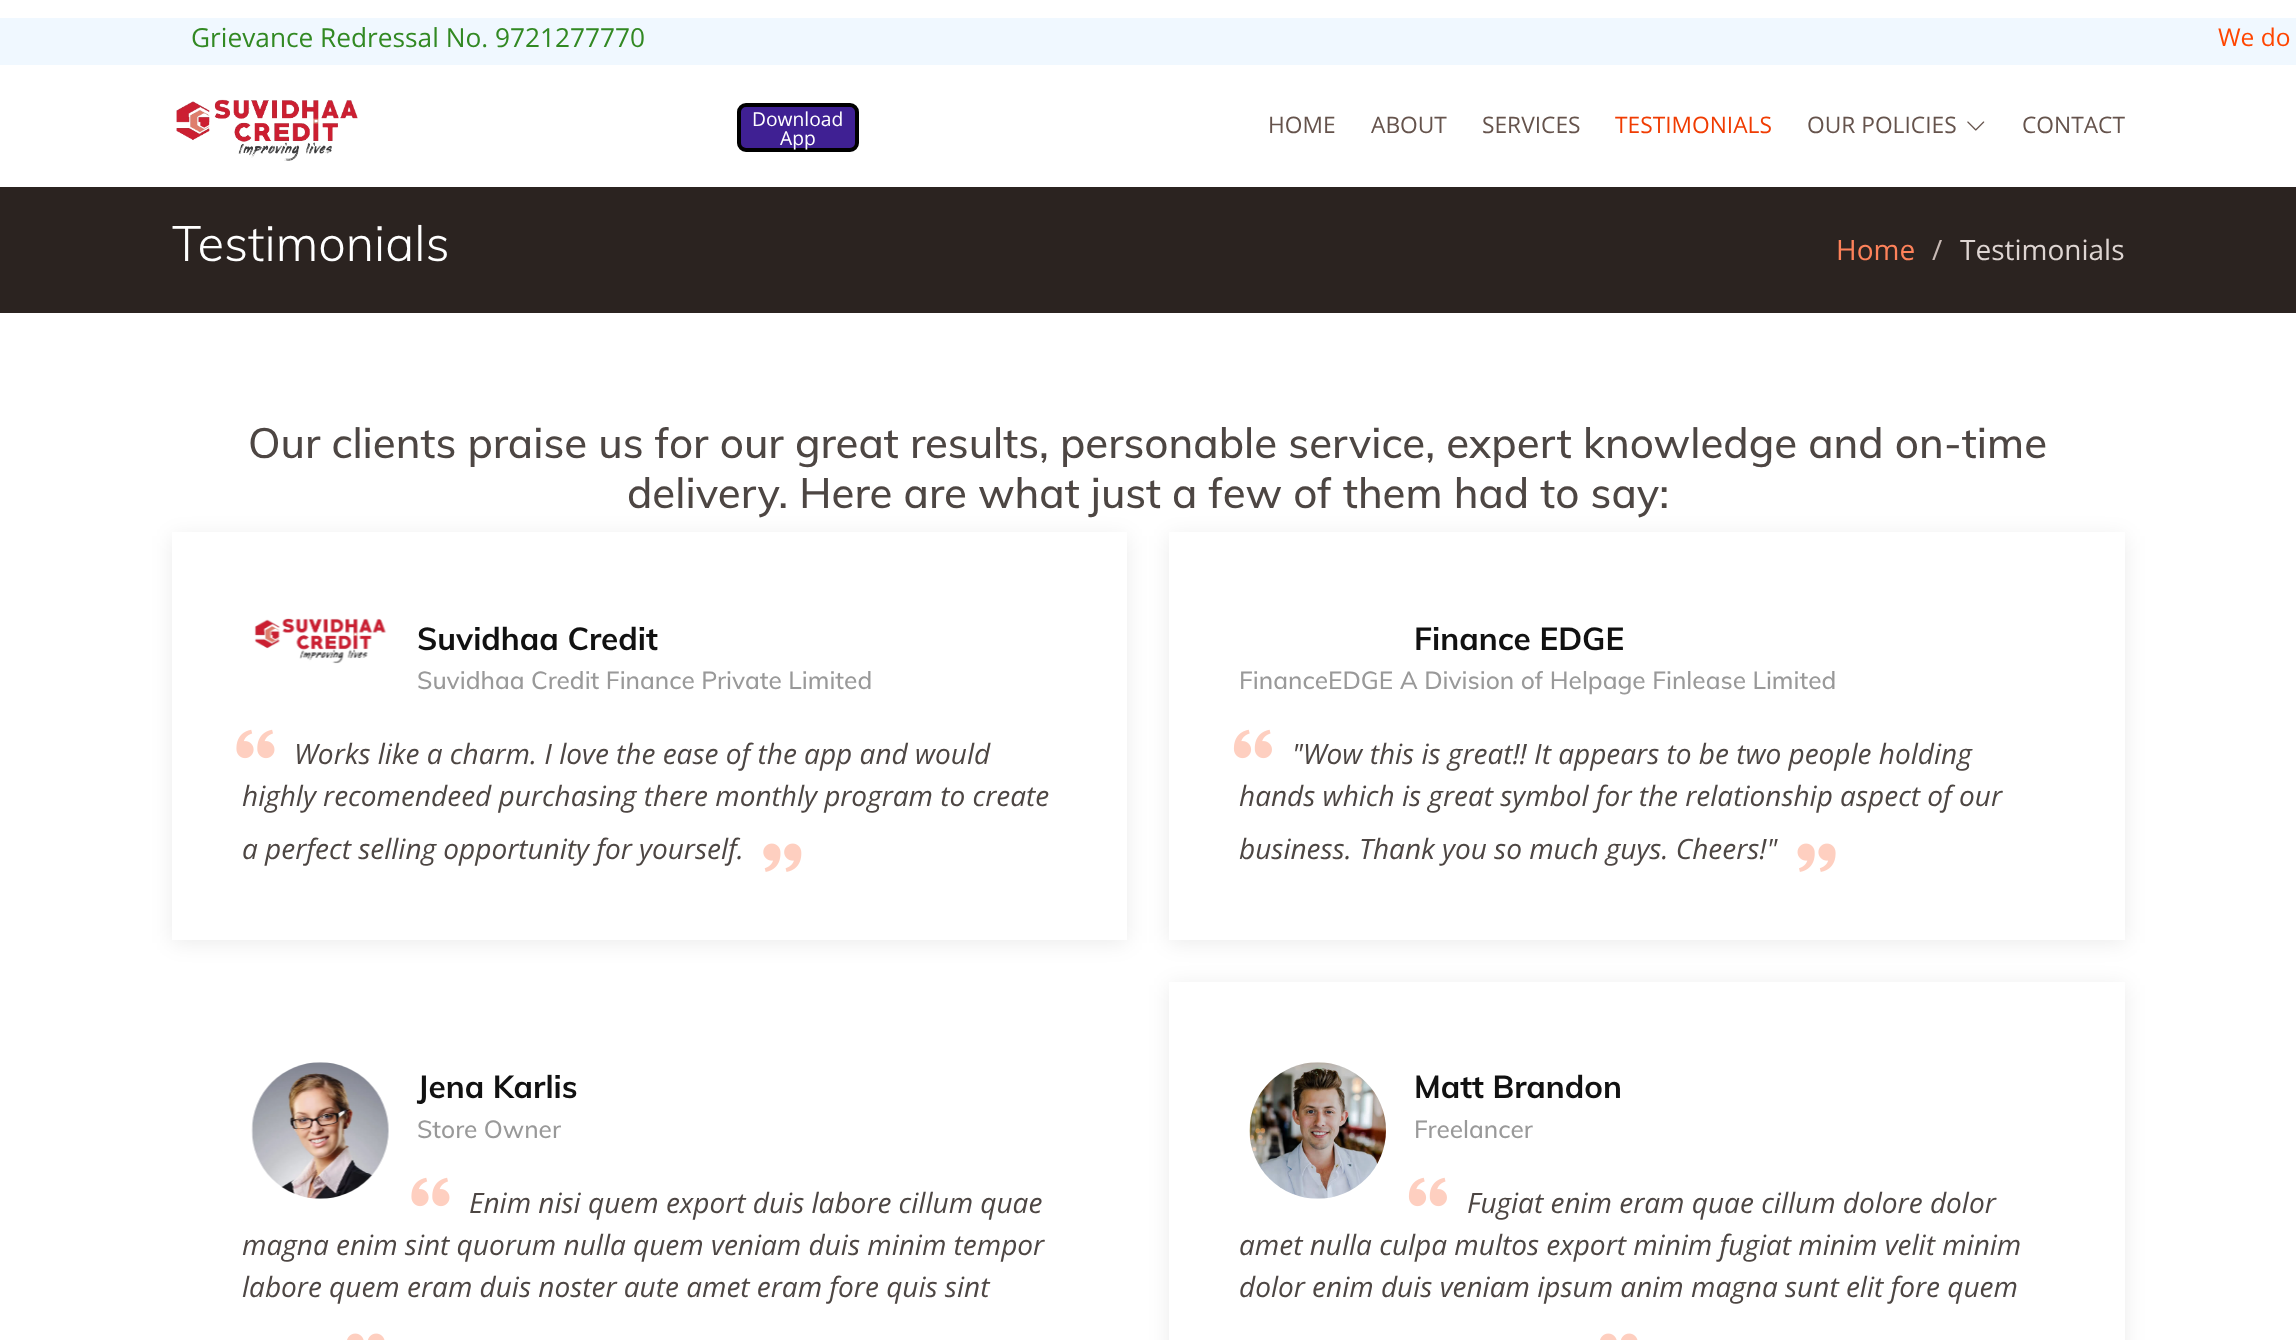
<svg xmlns="http://www.w3.org/2000/svg" width="2296" height="1340" viewBox="0 0 2296 1340">
  <rect width="100%" height="100%" fill="rgb(255,255,255)"/>
  <rect x="0" y="18" width="2296" height="47" fill="rgb(240,248,255)"/>
  <text x="191" y="47" font-family="Open Sans" font-size="26.25" fill="rgb(50,137,35)">Grievance Redressal No. 9721277770</text>
  <text x="2218" y="46" font-family="Open Sans" font-size="24.5" fill="rgb(255,69,0)">We do</text>
  <image x="176" y="99" width="182" height="62" href="pic1.png"/>
  <rect x="739" y="105" width="118" height="45" rx="7" fill="rgb(63,32,147)" stroke="rgb(0,0,0)" stroke-width="4"/>
  <g font-family="Open Sans" font-size="19.25" fill="rgb(255,255,255)">
    <text x="752" y="126">Download</text>
    <text x="780" y="145">App</text>
  </g>
  <g font-family="Open Sans" font-size="22.75" fill="rgb(101,83,76)">
    <text x="1268" y="133">HOME</text>
    <text x="1371" y="133">ABOUT</text>
    <text x="1482" y="133">SERVICES</text>
  </g>
  <text x="1615" y="133" font-family="Open Sans" font-size="22.75" fill="rgb(240,60,2)">TESTIMONIALS</text>
  <text x="1807" y="133" font-family="Open Sans" font-size="22.75" fill="rgb(101,83,76)">OUR POLICIES</text>
  <image x="1967" y="121" width="18" height="10" href="pic2.png"/>
  <text x="2022" y="133" font-family="Open Sans" font-size="22.75" fill="rgb(101,83,76)">CONTACT</text>
  <rect x="0" y="187" width="2296" height="126" fill="rgb(43,35,32)"/>
  <text x="172" y="261" font-family="Muli" font-size="49" font-weight="300" fill="rgb(255,255,255)">Testimonials</text>
  <text x="1836" y="260" font-family="Open Sans" font-size="28" fill="rgb(254,130,90)">Home</text>
  <text x="1932" y="260" font-family="Open Sans" font-size="28" fill="rgb(200,186,181)">/</text>
  <text x="1960" y="260" font-family="Open Sans" font-size="28" fill="rgb(222,213,210)">Testimonials</text>
  <g font-family="Muli" font-size="42" font-weight="500" fill="rgb(77,70,67)">
    <text x="248" y="458">Our clients praise us for our great results, personable service, expert knowledge and on-time</text>
    <text x="627" y="508">delivery. Here are what just a few of them had to say:</text>
  </g>
  <rect x="172" y="536" width="955" height="407" fill="rgba(0,0,0,0.08)" filter="blur(10.5px)"/>
  <rect x="172" y="532" width="955" height="408" fill="rgb(255,255,255)"/>
  <image x="254" y="618" width="133" height="46" href="pic3.png"/>
  <text x="417" y="650" font-family="Muli" font-size="31.5" font-weight="bold" fill="rgb(17,17,17)">Suvidhaa Credit</text>
  <text x="417" y="689" font-family="Muli" font-size="24.5" font-weight="500" fill="rgb(153,153,153)">Suvidhaa Credit Finance Private Limited</text>
  <image x="236" y="729" width="39" height="30" href="pic4.png"/>
  <g font-family="Open Sans" font-size="28" font-style="italic" fill="rgb(77,70,67)">
    <text x="294" y="764">Works like a charm. I love the ease of the app and would</text>
    <text>
      <tspan x="242" y="806">highly recomendeed purchasing there monthly program to create</tspan>
      <tspan x="242" y="859">a perfect selling opportunity for yourself.</tspan>
    </text>
  </g>
  <image x="763" y="843" width="39" height="29" href="pic5.png"/>
  <rect x="1169" y="536" width="956" height="407" fill="rgba(0,0,0,0.08)" filter="blur(10.5px)"/>
  <rect x="1169" y="532" width="956" height="408" fill="rgb(255,255,255)"/>
  <text x="1414" y="650" font-family="Muli" font-size="31.5" font-weight="bold" fill="rgb(17,17,17)">Finance EDGE</text>
  <text x="1239" y="689" font-family="Muli" font-size="24.5" font-weight="500" fill="rgb(153,153,153)">FinanceEDGE A Division of Helpage Finlease Limited</text>
  <image x="1233" y="729" width="39" height="30" href="pic6.png"/>
  <g font-family="Open Sans" font-size="28" font-style="italic" fill="rgb(77,70,67)">
    <text x="1292" y="764">"Wow this is great!! It appears to be two people holding</text>
    <text>
      <tspan x="1239" y="806">hands which is great symbol for the relationship aspect of our</tspan>
      <tspan x="1239" y="859">business. Thank you so much guys. Cheers!"</tspan>
    </text>
  </g>
  <image x="1797" y="843" width="39" height="29" href="pic7.png"/>
  <image x="251" y="1062" width="138" height="137" href="pic8.png"/>
  <text x="417" y="1098" font-family="Muli" font-size="31.5" font-weight="bold" fill="rgb(17,17,17)">Jena Karlis</text>
  <text x="417" y="1138" font-family="Muli" font-size="24.5" font-weight="500" fill="rgb(153,153,153)">Store Owner</text>
  <image x="411" y="1177" width="39" height="30" href="pic4.png"/>
  <g font-family="Open Sans" font-size="28" font-style="italic" fill="rgb(77,70,67)">
    <text x="469" y="1213">Enim nisi quem export duis labore cillum quae</text>
    <text>
      <tspan x="242" y="1255">magna enim sint quorum nulla quem veniam duis minim tempor</tspan>
      <tspan x="242" y="1297">labore quem eram duis noster aute amet eram fore quis sint</tspan>
    </text>
  </g>
  <image x="347" y="1333" width="38" height="7" href="pic9.png"/>
  <rect x="1169" y="985" width="956" height="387" fill="rgba(0,0,0,0.08)" filter="blur(10.5px)"/>
  <rect x="1169" y="982" width="956" height="358" fill="rgb(255,255,255)"/>
  <image x="1249" y="1062" width="137" height="137" href="pic10.png"/>
  <text x="1414" y="1098" font-family="Muli" font-size="31.5" font-weight="bold" fill="rgb(17,17,17)">Matt Brandon</text>
  <text x="1414" y="1138" font-family="Muli" font-size="24.5" font-weight="500" fill="rgb(153,153,153)">Freelancer</text>
  <image x="1408" y="1177" width="39" height="30" href="pic6.png"/>
  <g font-family="Open Sans" font-size="28" font-style="italic" fill="rgb(77,70,67)">
    <text x="1467" y="1213">Fugiat enim eram quae cillum dolore dolor</text>
    <text>
      <tspan x="1239" y="1255">amet nulla culpa multos export minim fugiat minim velit minim</tspan>
      <tspan x="1239" y="1297">dolor enim duis veniam ipsum anim magna sunt elit fore quem</tspan>
    </text>
  </g>
  <image x="1600" y="1333" width="38" height="7" href="pic9.png"/>
</svg>
